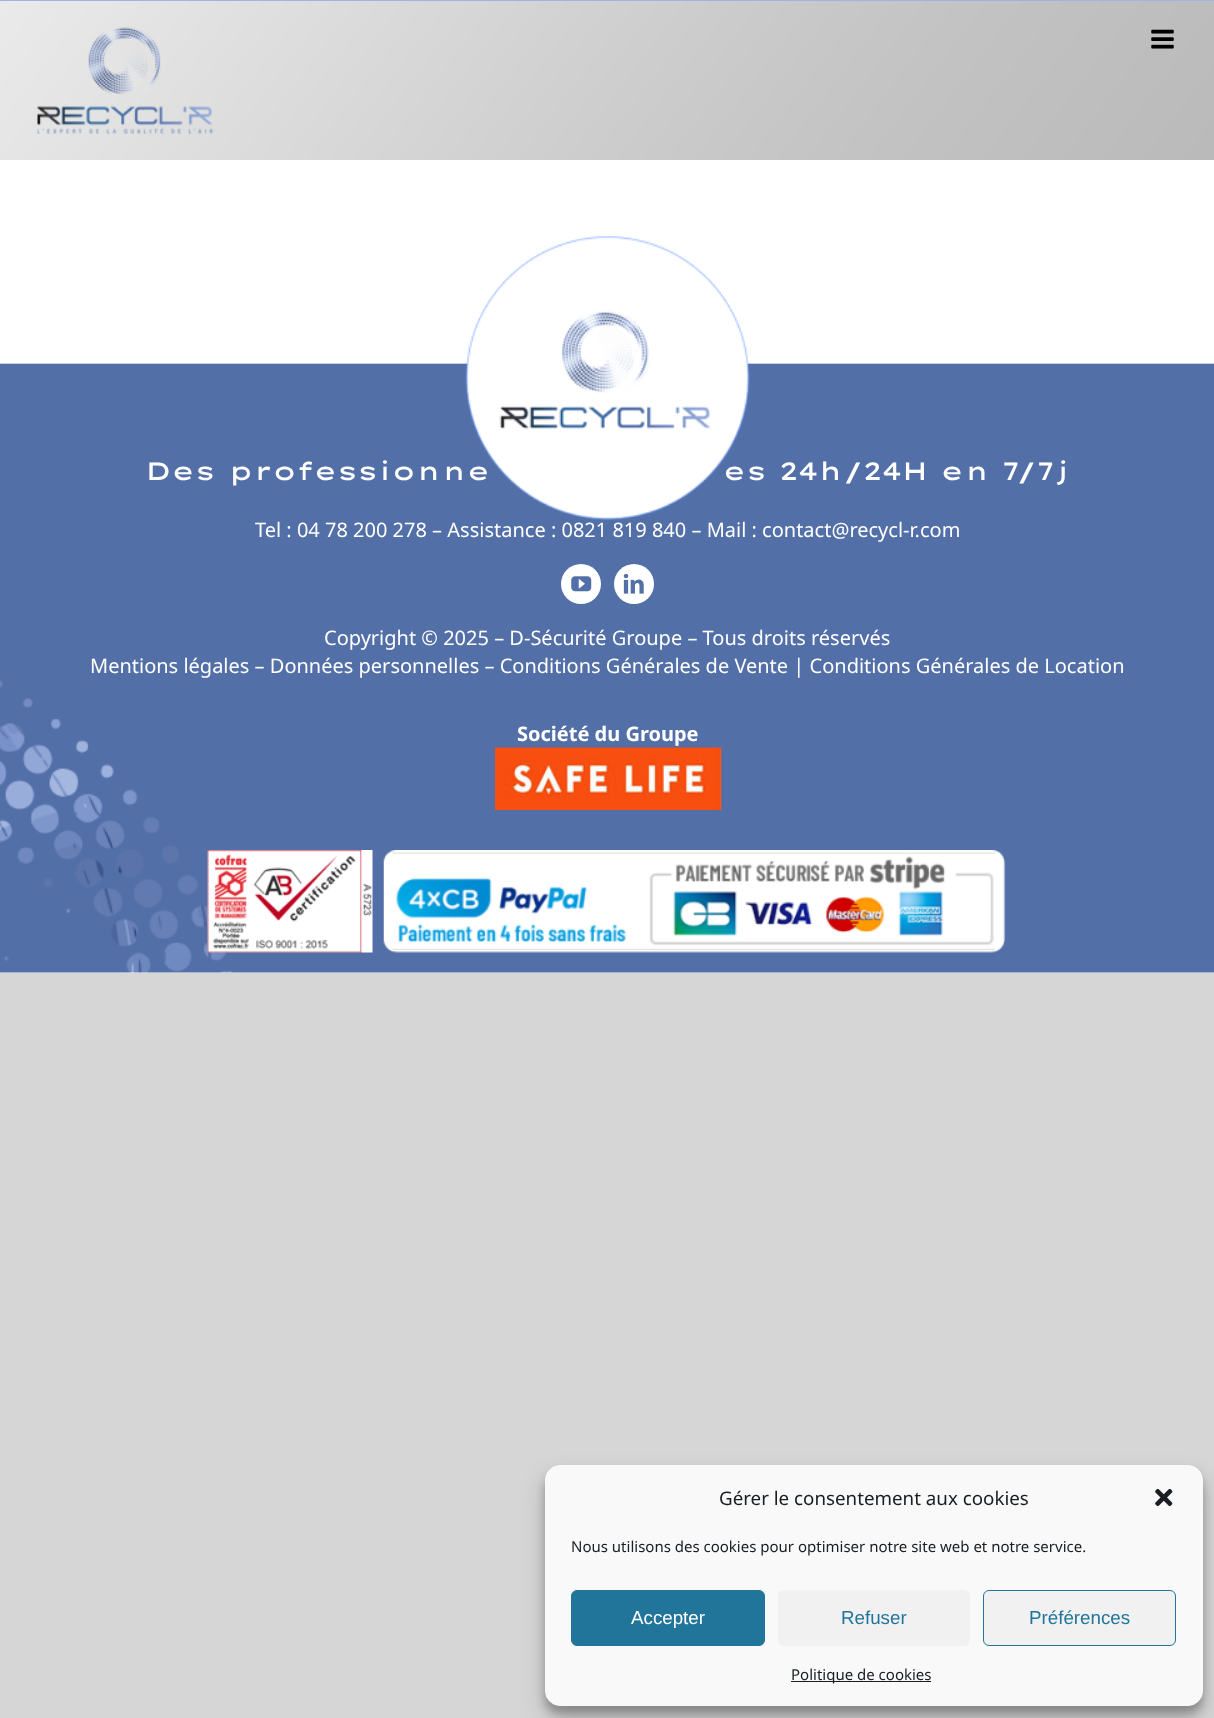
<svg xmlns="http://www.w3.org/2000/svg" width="1214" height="1718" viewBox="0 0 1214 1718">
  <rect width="100%" height="100%" fill="rgb(215,214,214)"/>
  <rect x="0" y="160" width="1214" height="813" fill="rgb(255,255,255)"/>
  <rect x="0" y="0" width="1214" height="1" fill="rgb(160,179,228)"/>
  <image x="0" y="1" width="1214" height="159" href="pic1.png"/>
  <image x="37" y="26" width="176" height="108" href="pic2.png"/>
  <image x="1151" y="29" width="23" height="20" href="pic3.png"/>
  <image x="0" y="236" width="1214" height="737" href="pic4.png"/>
  <g font-family="Lexend Zetta" font-size="25" font-weight="500" fill="rgb(255,255,255)">
    <text x="145" y="480">Des professionne</text>
    <text x="723" y="480">es 24h/24H en 7/7j</text>
  </g>
  <text x="255" y="537" font-family="Noto Sans" font-size="20" fill="rgb(255,255,255)">Tel : 04 78 200 278 – Assistance : 0821 819 840 – Mail : contact@recycl-r.com</text>
  <circle cx="581" cy="584" r="20" fill="rgb(255,255,255)"/>
  <image x="571" y="576" width="21" height="16" href="pic5.png"/>
  <circle cx="634" cy="584" r="20" fill="rgb(255,255,255)"/>
  <image x="623" y="573" width="21" height="21" href="pic6.png"/>
  <g font-family="Noto Sans" font-size="20" fill="rgb(255,255,255)">
    <text x="324" y="645">Copyright © 2025 – D-Sécurité Groupe – Tous droits réservés</text>
    <text x="90" y="673">Mentions légales – Données personnelles – Conditions Générales de Vente | Conditions Générales de Location</text>
  </g>
  <text x="517" y="741" font-family="Noto Sans" font-size="20" font-weight="bold" fill="rgb(255,255,255)">Société du Groupe</text>
  <image x="495" y="747" width="227" height="63" href="pic7.png"/>
  <image x="207" y="850" width="166" height="103" href="pic8.png"/>
  <image x="383" y="850" width="623" height="103" href="pic9.png"/>
  <rect x="545" y="1473" width="658" height="241" rx="15" fill="rgba(0,0,0,0.23)" filter="blur(4px)"/>
  <rect x="545" y="1478" width="658" height="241" rx="15" fill="rgba(0,0,0,0.19)" filter="blur(12.5px)"/>
  <rect x="545.5" y="1465.5" width="657" height="240" rx="14.5" fill="rgb(249,249,249)" stroke="rgb(249,249,249)"/>
  <text x="719" y="1505" font-family="Noto Sans" font-size="18.75" fill="rgb(25,30,35)">Gérer le consentement aux cookies</text>
  <image x="1155" y="1488" width="18" height="19" href="pic10.png"/>
  <text x="571" y="1552" font-family="Noto Sans" font-size="15" fill="rgb(25,30,35)">Nous utilisons des cookies pour optimiser notre site web et notre service.</text>
  <rect x="571.5" y="1590.5" width="193" height="55" rx="5.5" fill="rgb(33,117,155)" stroke="rgb(33,117,155)"/>
  <text x="631" y="1624" font-family="Liberation Sans" font-size="18.75" fill="rgb(255,255,255)">Accepter</text>
  <rect x="778" y="1590" width="192" height="56" rx="6" fill="rgb(241,241,241)"/>
  <text x="841" y="1624" font-family="Liberation Sans" font-size="18.75" fill="rgb(33,117,155)">Refuser</text>
  <rect x="983.5" y="1590.5" width="192" height="55" rx="5.5" fill="rgb(241,241,241)" stroke="rgb(33,117,155)"/>
  <text x="1029" y="1624" font-family="Liberation Sans" font-size="18.75" fill="rgb(33,117,155)">Préférences</text>
  <rect x="791" y="1681" width="140" height="1" fill="rgb(25,30,35)"/>
  <text x="791" y="1680" font-family="Noto Sans" font-size="15" fill="rgb(25,30,35)">Politique de cookies</text>
</svg>
